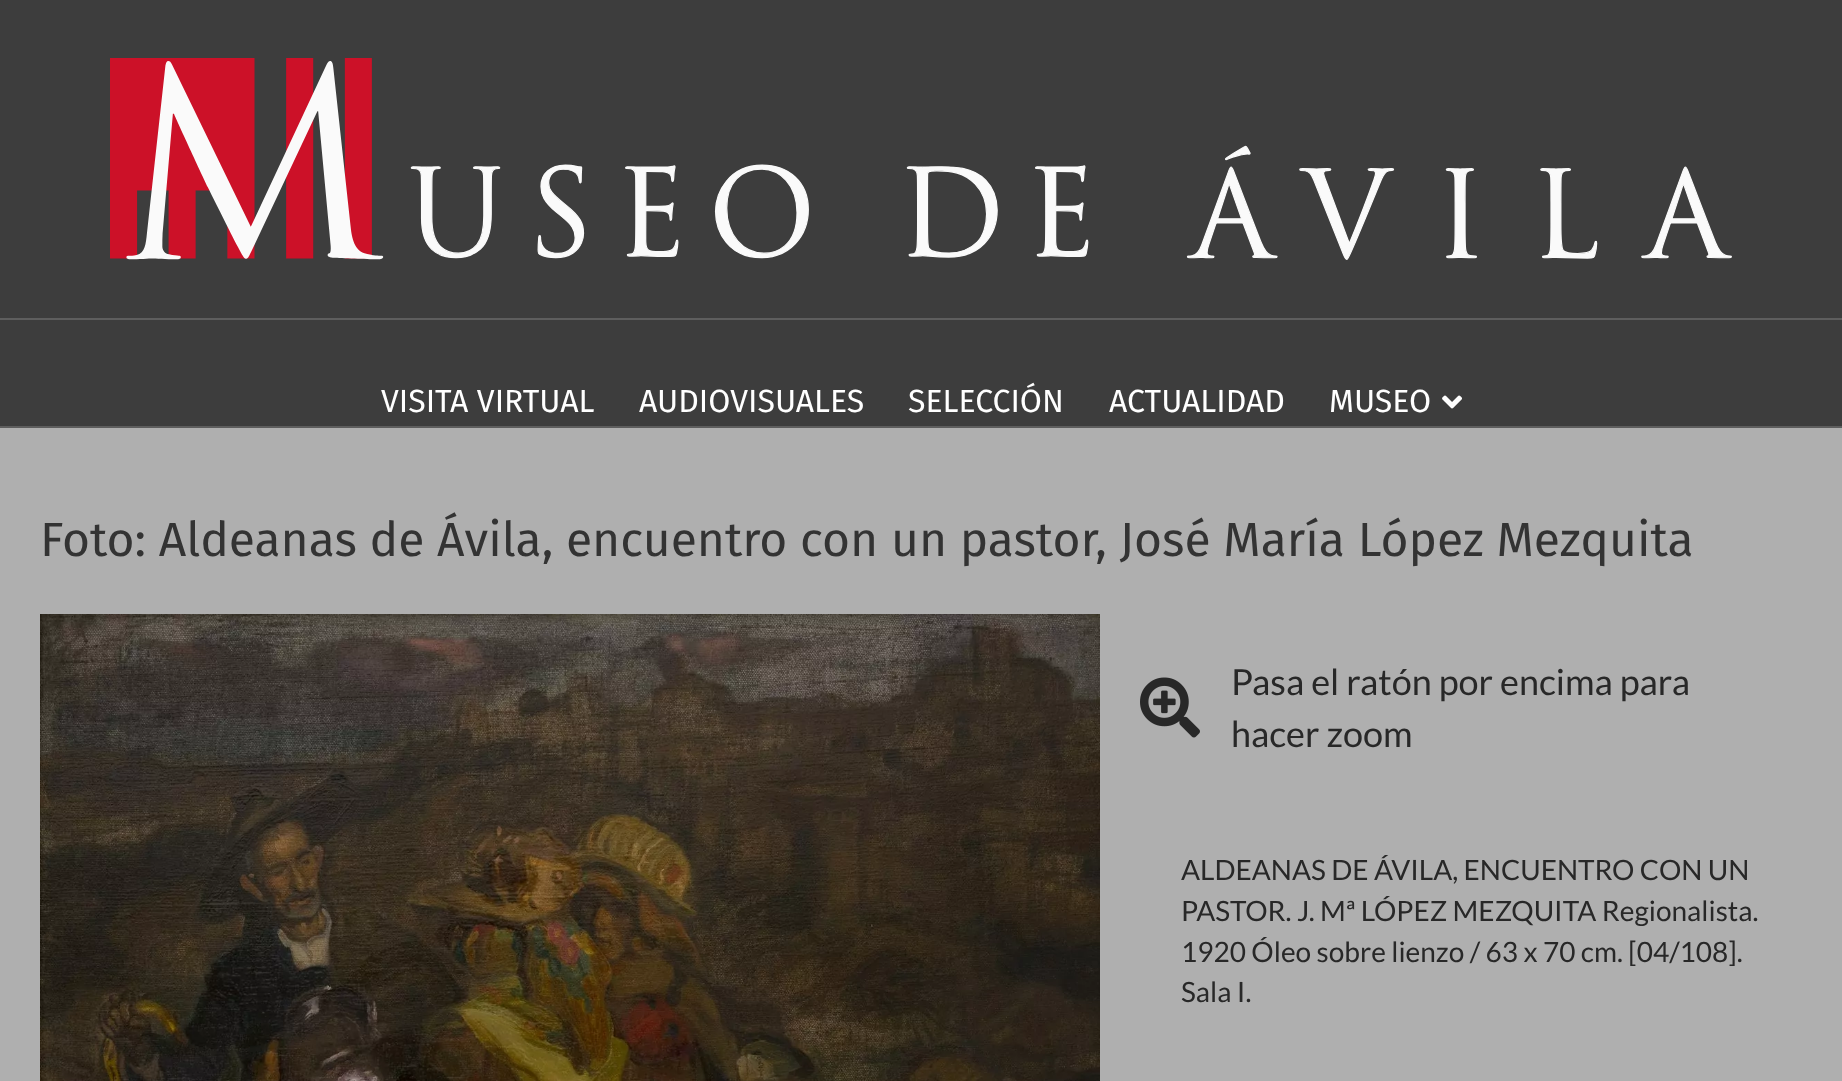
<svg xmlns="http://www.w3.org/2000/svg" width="1842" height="1081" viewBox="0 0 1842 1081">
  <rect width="100%" height="100%" fill="rgb(61,61,61)"/>
  <image x="110" y="58" width="1622" height="202" href="pic1.png"/>
  <rect x="0" y="318" width="1842" height="2" fill="rgb(94,94,94)"/>
  <rect x="0" y="426" width="1842" height="2" fill="rgb(94,94,94)"/>
  <g font-family="Fira Sans" font-size="32" fill="rgb(255,255,255)">
    <text x="381" y="412">VISITA VIRTUAL</text>
    <text x="639" y="412">AUDIOVISUALES</text>
    <text x="908" y="412">SELECCIÓN</text>
    <text x="1109" y="412">ACTUALIDAD</text>
    <text x="1329" y="412">MUSEO</text>
  </g>
  <image x="1442" y="395" width="20" height="14" href="pic2.png"/>
  <rect x="0" y="428" width="1842" height="653" fill="rgb(175,175,175)"/>
  <text x="40" y="556" font-family="Fira Sans" font-size="48" fill="rgb(51,51,51)">Foto: Aldeanas de Ávila, encuentro con un pastor, José María López Mezquita</text>
  <image x="40" y="614" width="1060" height="467" href="pic3.png"/>
  <image x="1140" y="677" width="60" height="61" href="pic4.png"/>
  <g font-family="Lato" font-size="36" fill="rgb(40,40,40)">
    <text>
      <tspan x="1231" y="695">Pasa el ratón por encima para</tspan>
      <tspan x="1231" y="747">hacer zoom</tspan>
    </text>
  </g>
  <g font-family="Lato" font-size="28" fill="rgb(40,40,40)">
    <text>
      <tspan x="1181" y="880">ALDEANAS DE ÁVILA, ENCUENTRO CON UN</tspan>
      <tspan x="1181" y="921">PASTOR. J. Mª LÓPEZ MEZQUITA Regionalista.</tspan>
      <tspan x="1181" y="962">1920 Óleo sobre lienzo / 63 x 70 cm. [04/108].</tspan>
      <tspan x="1181" y="1002">Sala I.</tspan>
    </text>
  </g>
</svg>
